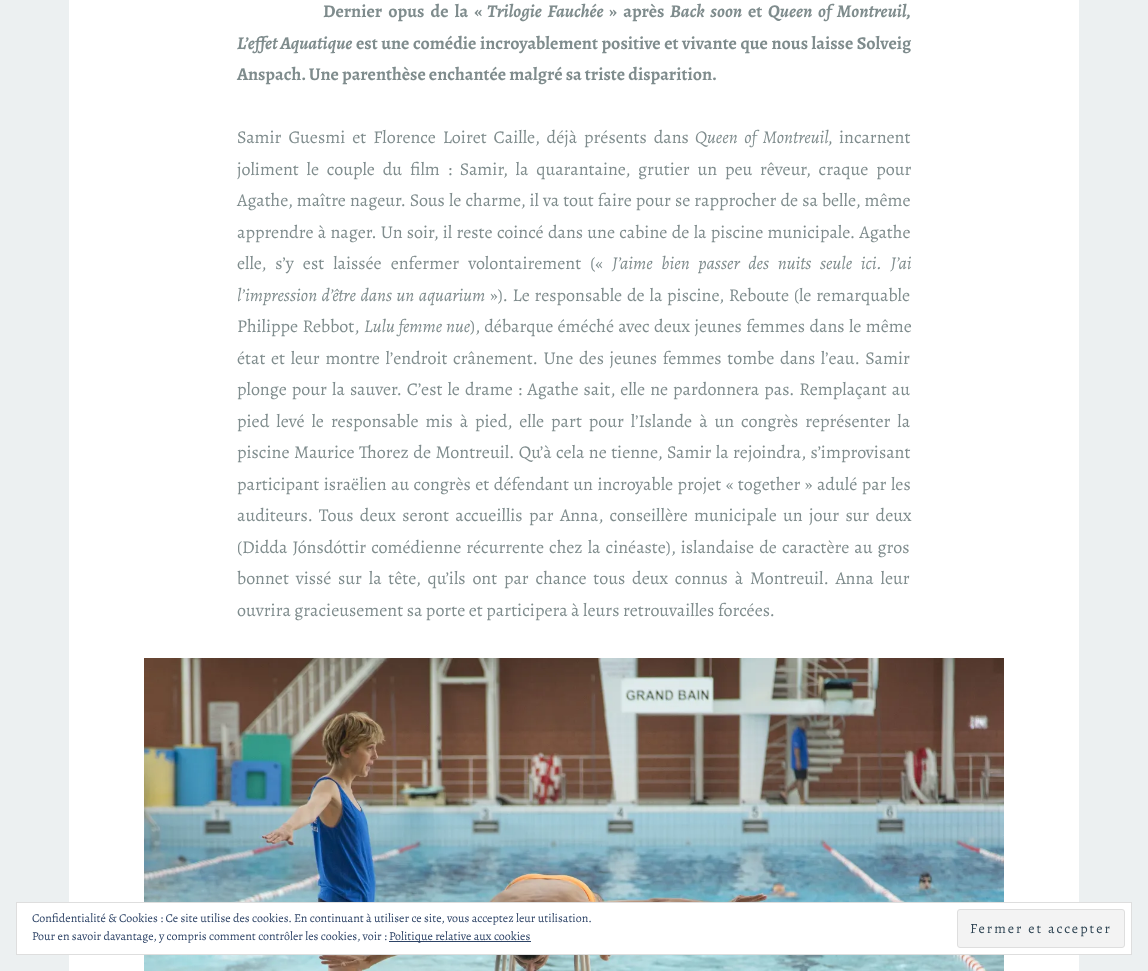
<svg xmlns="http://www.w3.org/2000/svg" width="1148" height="971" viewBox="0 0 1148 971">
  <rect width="100%" height="100%" fill="rgb(236,240,241)"/>
  <rect x="69" y="0" width="1010" height="971" fill="rgb(255,255,255)"/>
  <text x="323" y="17" word-spacing="3" font-family="Alegreya" font-size="18" font-weight="bold" fill="rgb(127,140,141)">Dernier opus de la «</text>
  <text x="487" y="17" word-spacing="3" font-family="Alegreya" font-size="18" font-weight="bold" font-style="italic" fill="rgb(127,140,141)">Trilogie Fauchée</text>
  <text x="609" y="17" word-spacing="3" font-family="Alegreya" font-size="18" font-weight="bold" fill="rgb(127,140,141)">» après</text>
  <text x="670" y="17" word-spacing="3" font-family="Alegreya" font-size="18" font-weight="bold" font-style="italic" fill="rgb(127,140,141)">Back soon</text>
  <text x="748" y="17" font-family="Alegreya" font-size="18" font-weight="bold" fill="rgb(127,140,141)">et</text>
  <g font-family="Alegreya" font-size="18" font-weight="bold" font-style="italic" fill="rgb(127,140,141)">
    <text x="768" y="17" word-spacing="3">Queen of Montreuil,</text>
    <text x="237" y="49">L’effet Aquatique</text>
  </g>
  <g font-family="Alegreya" font-size="18" font-weight="bold" fill="rgb(127,140,141)">
    <text x="356" y="49" word-spacing="0.4">est une comédie incroyablement positive et vivante que nous laisse Solveig</text>
    <text x="237" y="80">Anspach. Une parenthèse enchantée malgré sa triste disparition.</text>
  </g>
  <text x="237" y="143" word-spacing="3.4" font-family="Alegreya" font-size="18" fill="rgb(127,140,141)">Samir Guesmi et Florence Loiret Caille, déjà présents dans</text>
  <text x="695" y="143" word-spacing="3.4" font-family="Alegreya" font-size="18" font-style="italic" fill="rgb(127,140,141)">Queen of Montreuil,</text>
  <g font-family="Alegreya" font-size="18" fill="rgb(127,140,141)">
    <text x="839" y="143">incarnent</text>
    <text>
      <tspan x="237" y="175" word-spacing="4.25">joliment le couple du film : Samir, la quarantaine, grutier un peu rêveur, craque pour</tspan>
      <tspan x="237" y="206" word-spacing="0.5">Agathe, maître nageur. Sous le charme, il va tout faire pour se rapprocher de sa belle, même</tspan>
      <tspan x="237" y="238" word-spacing="0.75">apprendre à nager. Un soir, il reste coincé dans une cabine de la piscine municipale. Agathe</tspan>
      <tspan x="237" y="269" word-spacing="5.5">elle, s’y est laissée enfermer volontairement («</tspan>
    </text>
  </g>
  <g font-family="Alegreya" font-size="18" font-style="italic" fill="rgb(127,140,141)">
    <text x="612" y="269" word-spacing="5.5">J’aime bien passer des nuits seule ici. J’ai</text>
    <text x="237" y="301" word-spacing="1.5">l’impression d’être dans un aquarium</text>
  </g>
  <g font-family="Alegreya" font-size="18" fill="rgb(127,140,141)">
    <text x="490" y="301" word-spacing="1.25">»). Le responsable de la piscine, Reboute (le remarquable</text>
    <text x="237" y="332" word-spacing="0.75">Philippe Rebbot,</text>
  </g>
  <text x="364" y="332" word-spacing="0.75" font-family="Alegreya" font-size="18" font-style="italic" fill="rgb(127,140,141)">Lulu femme nue</text>
  <g font-family="Alegreya" font-size="18" fill="rgb(127,140,141)">
    <text x="470" y="332" word-spacing="0.75">), débarque éméché avec deux jeunes femmes dans le même</text>
    <text>
      <tspan x="237" y="364" word-spacing="2.1">état et leur montre l’endroit crânement. Une des jeunes femmes tombe dans l’eau. Samir</tspan>
      <tspan x="237" y="395" word-spacing="1.5">plonge pour la sauver. C’est le drame : Agathe sait, elle ne pardonnera pas. Remplaçant au</tspan>
      <tspan x="237" y="427" word-spacing="3.4">pied levé le responsable mis à pied, elle part pour l’Islande à un congrès représenter la</tspan>
      <tspan x="237" y="458" word-spacing="0.9">piscine Maurice Thorez de Montreuil. Qu’à cela ne tienne, Samir la rejoindra, s’improvisant</tspan>
      <tspan x="237" y="490" word-spacing="0.9">participant israëlien au congrès et défendant un incroyable projet « together » adulé par les</tspan>
      <tspan x="237" y="521" word-spacing="2.75">auditeurs. Tous deux seront accueillis par Anna, conseillère municipale un jour sur deux</tspan>
      <tspan x="237" y="553" word-spacing="1.5">(Didda Jónsdóttir comédienne récurrente chez la cinéaste), islandaise de caractère au gros</tspan>
      <tspan x="237" y="584" word-spacing="3.25">bonnet vissé sur la tête, qu’ils ont par chance tous deux connus à Montreuil. Anna leur</tspan>
      <tspan x="237" y="616">ouvrira gracieusement sa porte et participera à leurs retrouvailles forcées.</tspan>
    </text>
  </g>
  <image x="144" y="658" width="860" height="313" href="pic1.png"/>
  <rect x="16.5" y="902.5" width="1115" height="52" fill="rgb(255,255,255)" stroke="rgb(222,222,222)"/>
  <g font-family="Alegreya" font-size="12" fill="rgb(46,68,103)">
    <text>
      <tspan x="32" y="922">Confidentialité &amp; Cookies : Ce site utilise des cookies. En continuant à utiliser ce site, vous acceptez leur utilisation.</tspan>
      <tspan x="32" y="940">Pour en savoir davantage, y compris comment contrôler les cookies, voir :</tspan>
    </text>
  </g>
  <rect x="389" y="941" width="142" height="1" fill="rgb(46,68,103)"/>
  <text x="389" y="940" font-family="Alegreya" font-size="12" fill="rgb(46,68,103)">Politique relative aux cookies</text>
  <rect x="957.5" y="909.5" width="167" height="38" rx="2.5" fill="rgb(243,243,243)" stroke="rgb(222,222,222)"/>
  <text x="970" y="933" font-family="Alegreya" font-size="14" letter-spacing="2" fill="rgb(46,68,83)">Fermer et accepter</text>
</svg>
